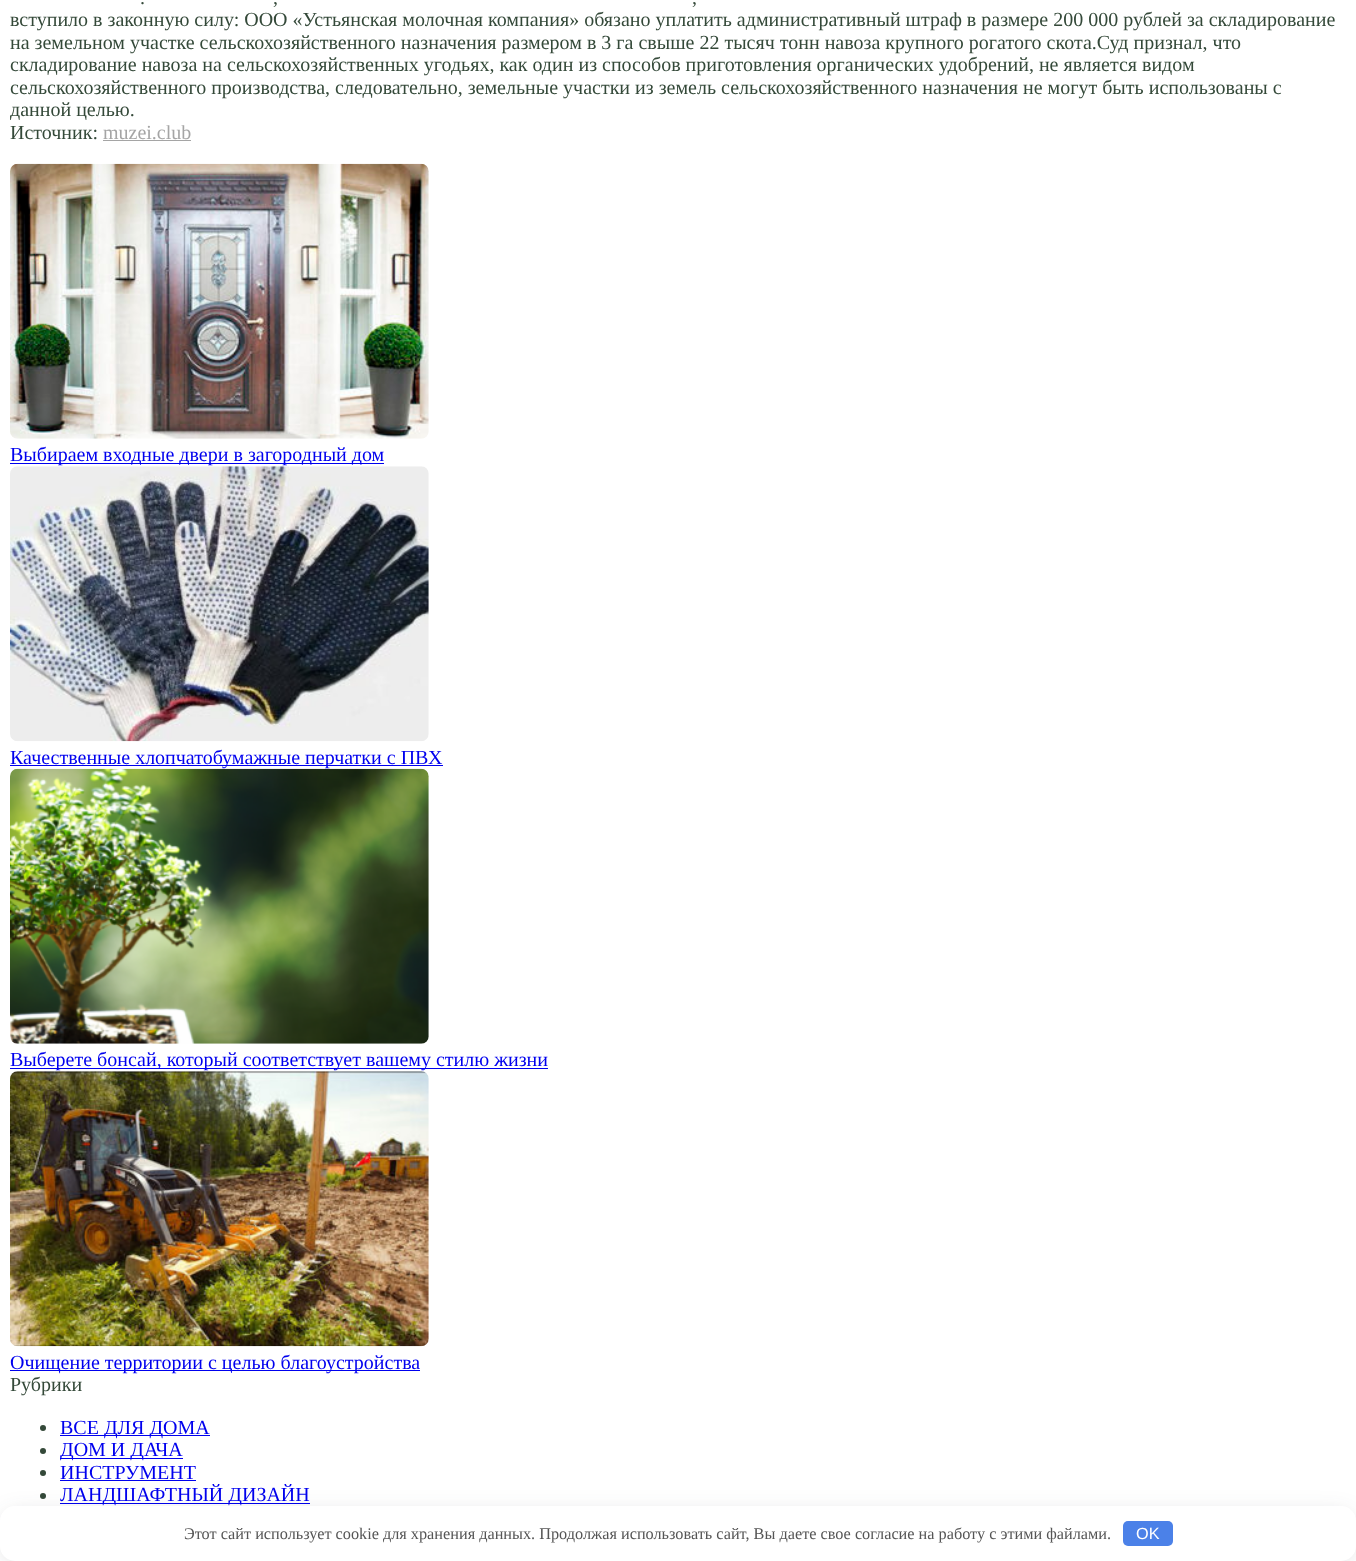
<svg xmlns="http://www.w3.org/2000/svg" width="1356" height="1561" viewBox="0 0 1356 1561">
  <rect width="100%" height="100%" fill="rgb(255,255,255)"/>
  <g font-family="Liberation Serif" font-size="20" fill="rgb(52,73,57)">
    <text x="140" y="4">.</text>
    <text x="273" y="4">,</text>
    <text x="692" y="4">,</text>
    <text>
      <tspan x="10" y="26">вступило в законную силу: ООО «Устьянская молочная компания» обязано уплатить административный штраф в размере 200 000 рублей за складирование</tspan>
      <tspan x="10" y="49">на земельном участке сельскохозяйственного назначения размером в 3 га свыше 22 тысяч тонн навоза крупного рогатого скота.Суд признал, что</tspan>
      <tspan x="10" y="71">складирование навоза на сельскохозяйственных угодьях, как один из способов приготовления органических удобрений, не является видом</tspan>
      <tspan x="10" y="94">сельскохозяйственного производства, следовательно, земельные участки из земель сельскохозяйственного назначения не могут быть использованы с</tspan>
      <tspan x="10" y="116">данной целью.</tspan>
      <tspan x="10" y="139">Источник:</tspan>
    </text>
  </g>
  <text x="103" y="139" font-family="Liberation Serif" font-size="20" fill="rgb(165,165,165)">muzei.club</text>
  <rect x="103" y="140" width="88" height="1" fill="rgb(165,165,165)"/>
  <image x="10" y="163" width="419" height="276" href="pic1.png"/>
  <rect x="10" y="463" width="374" height="1" fill="rgb(0,0,238)"/>
  <text x="10" y="461" font-family="Liberation Serif" font-size="20" fill="rgb(0,0,238)">Выбираем входные двери в загородный дом</text>
  <image x="10" y="466" width="419" height="276" href="pic2.png"/>
  <rect x="10" y="765" width="433" height="1" fill="rgb(0,0,238)"/>
  <text x="10" y="764" font-family="Liberation Serif" font-size="20" fill="rgb(0,0,238)">Качественные хлопчатобумажные перчатки с ПВХ</text>
  <image x="10" y="768" width="419" height="276" href="pic3.png"/>
  <rect x="10" y="1068" width="538" height="1" fill="rgb(0,0,238)"/>
  <text x="10" y="1066" font-family="Liberation Serif" font-size="20" fill="rgb(0,0,238)">Выберете бонсай, который соответствует вашему стилю жизни</text>
  <image x="10" y="1071" width="419" height="276" href="pic4.png"/>
  <rect x="10" y="1370" width="410" height="1" fill="rgb(0,0,238)"/>
  <text x="10" y="1369" font-family="Liberation Serif" font-size="20" fill="rgb(0,0,238)">Очищение территории с целью благоустройства</text>
  <text x="10" y="1391" font-family="Liberation Serif" font-size="20" fill="rgb(52,73,57)">Рубрики</text>
  <circle cx="43" cy="1428" r="3" fill="rgb(52,73,57)"/>
  <rect x="60" y="1435" width="150" height="1" fill="rgb(0,0,238)"/>
  <text x="60" y="1434" font-family="Liberation Serif" font-size="20" fill="rgb(0,0,238)">ВСЕ ДЛЯ ДОМА</text>
  <circle cx="43" cy="1451" r="3" fill="rgb(52,73,57)"/>
  <rect x="60" y="1458" width="123" height="1" fill="rgb(0,0,238)"/>
  <text x="60" y="1456" font-family="Liberation Serif" font-size="20" fill="rgb(0,0,238)">ДОМ И ДАЧА</text>
  <circle cx="43" cy="1473" r="3" fill="rgb(52,73,57)"/>
  <text x="60" y="1479" font-family="Liberation Serif" font-size="20" fill="rgb(0,0,238)">ИНСТРУМЕНТ</text>
  <rect x="60" y="1480" width="136" height="1" fill="rgb(0,0,238)"/>
  <circle cx="43" cy="1496" r="3" fill="rgb(52,73,57)"/>
  <rect x="60" y="1503" width="250" height="1" fill="rgb(0,0,238)"/>
  <text x="60" y="1501" font-family="Liberation Serif" font-size="20" fill="rgb(0,0,238)">ЛАНДШАФТНЫЙ ДИЗАЙН</text>
  <rect x="6" y="1516" width="1344" height="43" rx="9" fill="rgba(41,44,56,0.2)" filter="blur(12.5px)"/>
  <rect x="0" y="1506" width="1356" height="55" rx="15" fill="rgb(255,255,255)"/>
  <text x="184" y="1539" font-family="Liberation Serif" font-size="16.25" fill="rgb(85,85,85)">Этот сайт использует cookie для хранения данных. Продолжая использовать сайт, Вы даете свое согласие на работу с этими файлами.</text>
  <rect x="1123" y="1521" width="50" height="25" rx="5" fill="rgb(75,129,232)"/>
  <text x="1136" y="1539" font-family="Liberation Sans" font-size="16.25" fill="rgb(255,255,255)">OK</text>
</svg>
